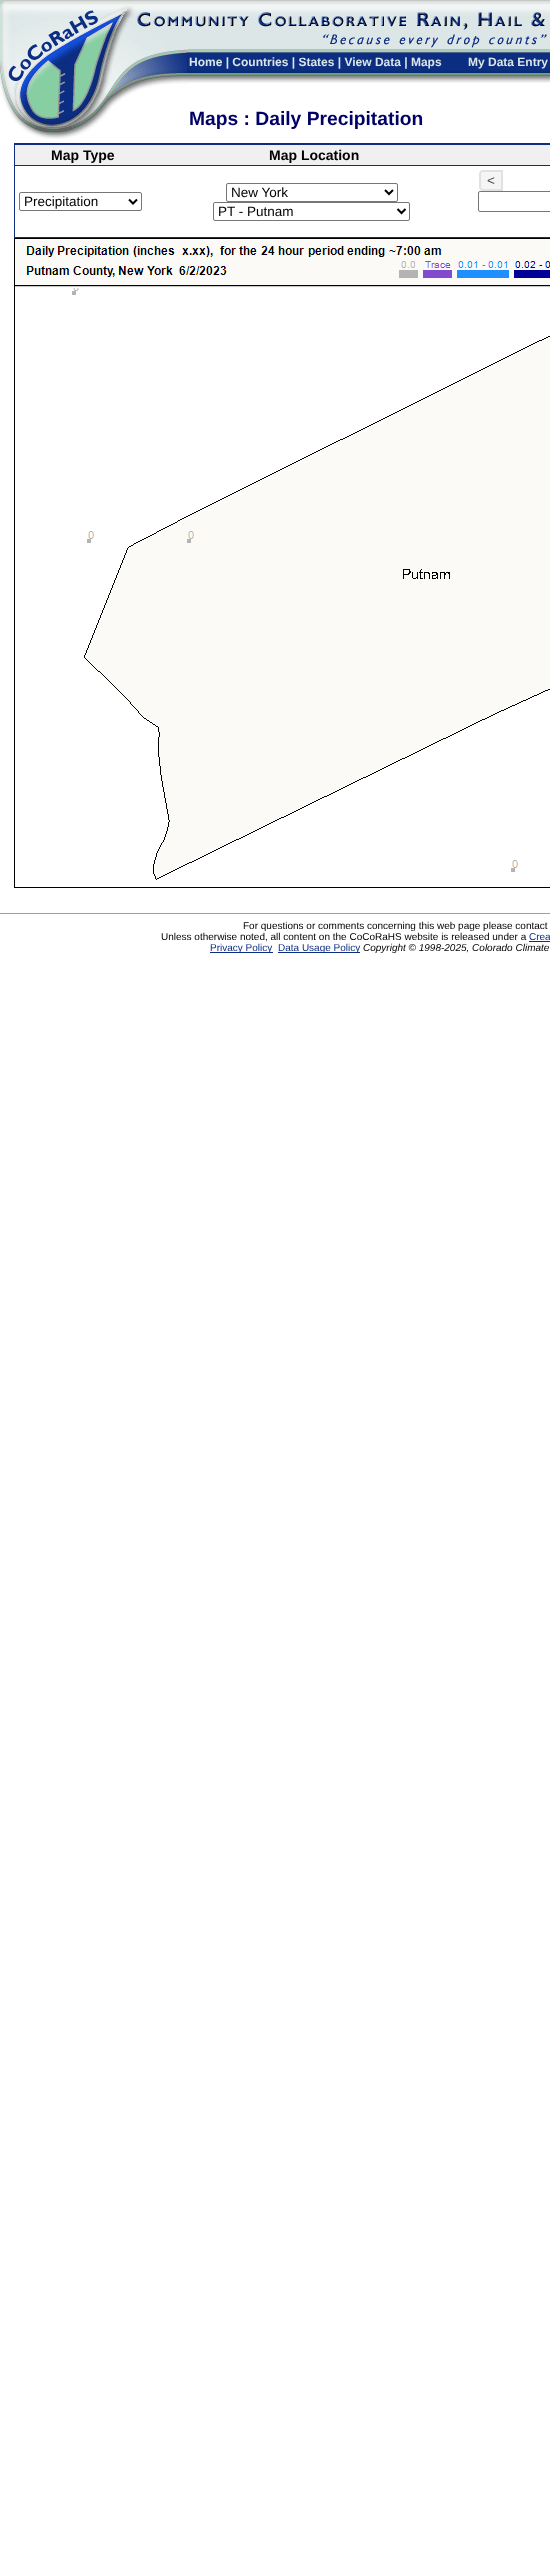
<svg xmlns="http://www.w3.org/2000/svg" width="550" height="2572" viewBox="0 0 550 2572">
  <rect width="100%" height="100%" fill="rgb(255,255,255)"/>
  <image x="0" y="0" width="135" height="139" href="pic1.png"/>
  <image x="135" y="0" width="415" height="51" href="pic2.png"/>
  <image x="135" y="12" width="412" height="39" href="pic3.png"/>
  <image x="187" y="51" width="2" height="32" href="pic4.png"/>
  <image x="135" y="51" width="52" height="41" href="pic5.png"/>
  <image x="189" y="51" width="361" height="32" href="pic6.png"/>
  <g font-family="Liberation Sans" font-size="12" font-weight="bold" fill="rgb(220,230,230)">
    <text x="189" y="66">Home | Countries | States | View Data | Maps</text>
    <text x="468" y="66">My Data Entry</text>
  </g>
  <text x="189" y="125" font-family="Liberation Sans" font-size="19.25" font-weight="bold" fill="rgb(0,0,102)">Maps : Daily Precipitation</text>
  <rect x="14.5" y="143.5" width="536" height="94" fill="none" stroke="rgb(12,46,130)"/>
  <rect x="15" y="145" width="535" height="20" fill="rgb(240,240,240)"/>
  <rect x="15" y="144" width="535" height="1" fill="rgb(12,46,130)"/>
  <rect x="15" y="165" width="535" height="1" fill="rgb(12,46,130)"/>
  <g font-family="Liberation Sans" font-size="14" font-weight="bold" fill="rgb(0,0,0)">
    <text x="51" y="160">Map Type</text>
    <text x="269" y="160">Map Location</text>
  </g>
  <path d="M483 170H503V191H483C481 191 479 189 479 187V174C479 172 481 170 483 170Z" fill="rgb(245,245,245)"/>
  <path d="M483 171H502V190H483C481.5 190 480 188.5 480 187V174C480 172.5 481.5 171 483 171Z" fill="none" stroke="rgba(0,0,0,0.08)" stroke-width="2"/>
  <text x="487" y="185" font-family="Liberation Sans" font-size="13.5" fill="rgb(66,66,66)">&lt;</text>
  <rect x="478.5" y="191.5" width="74" height="20" rx="1.5" fill="none" stroke="rgb(118,118,118)"/>
  <rect x="19.5" y="192.5" width="122" height="18" rx="1.5" fill="none" stroke="rgb(118,118,118)"/>
  <path d="M129 199.5L133 203.5L137 199.5" fill="none" stroke="rgb(0,0,0)" stroke-width="2"/>
  <text x="24" y="206" font-family="Liberation Sans" font-size="13.5" fill="rgb(0,0,0)">Precipitation</text>
  <rect x="226.5" y="183.5" width="171" height="18" rx="1.5" fill="none" stroke="rgb(118,118,118)"/>
  <path d="M385 190L389 194L393 190" fill="none" stroke="rgb(0,0,0)" stroke-width="2"/>
  <text x="231" y="197" font-family="Liberation Sans" font-size="13.5" fill="rgb(0,0,0)">New York</text>
  <rect x="213.5" y="202.5" width="196" height="18" rx="1.5" fill="none" stroke="rgb(118,118,118)"/>
  <path d="M397.5 209L401.5 213L405.5 209" fill="none" stroke="rgb(0,0,0)" stroke-width="2"/>
  <text x="218" y="216" font-family="Liberation Sans" font-size="13.5" fill="rgb(0,0,0)">PT - Putnam</text>
  <image x="14" y="238" width="536" height="650" href="pic7.png"/>
  <rect x="0" y="913" width="550" height="1" fill="rgb(159,159,159)"/>
  <g font-family="Liberation Sans" font-size="10" fill="rgb(0,0,0)">
    <text x="243" y="929">For questions or comments concerning this web page please contact</text>
    <text x="161" y="940">Unless otherwise noted, all content on the CoCoRaHS website is released under a</text>
  </g>
  <text x="529" y="940" font-family="Liberation Sans" font-size="10" fill="rgb(12,46,130)">Crea</text>
  <rect x="529" y="941" width="21" height="1" fill="rgb(12,46,130)"/>
  <rect x="210" y="952" width="63" height="1" fill="rgb(12,46,130)"/>
  <text x="210" y="951" font-family="Liberation Sans" font-size="10" fill="rgb(12,46,130)">Privacy Policy</text>
  <rect x="278" y="952" width="82" height="1" fill="rgb(12,46,130)"/>
  <text x="278" y="951" font-family="Liberation Sans" font-size="10" fill="rgb(12,46,130)">Data Usage Policy</text>
  <text x="363" y="951" font-family="Liberation Sans" font-size="10" font-style="italic" fill="rgb(0,0,0)">Copyright © 1998-2025, Colorado Climate</text>
</svg>
